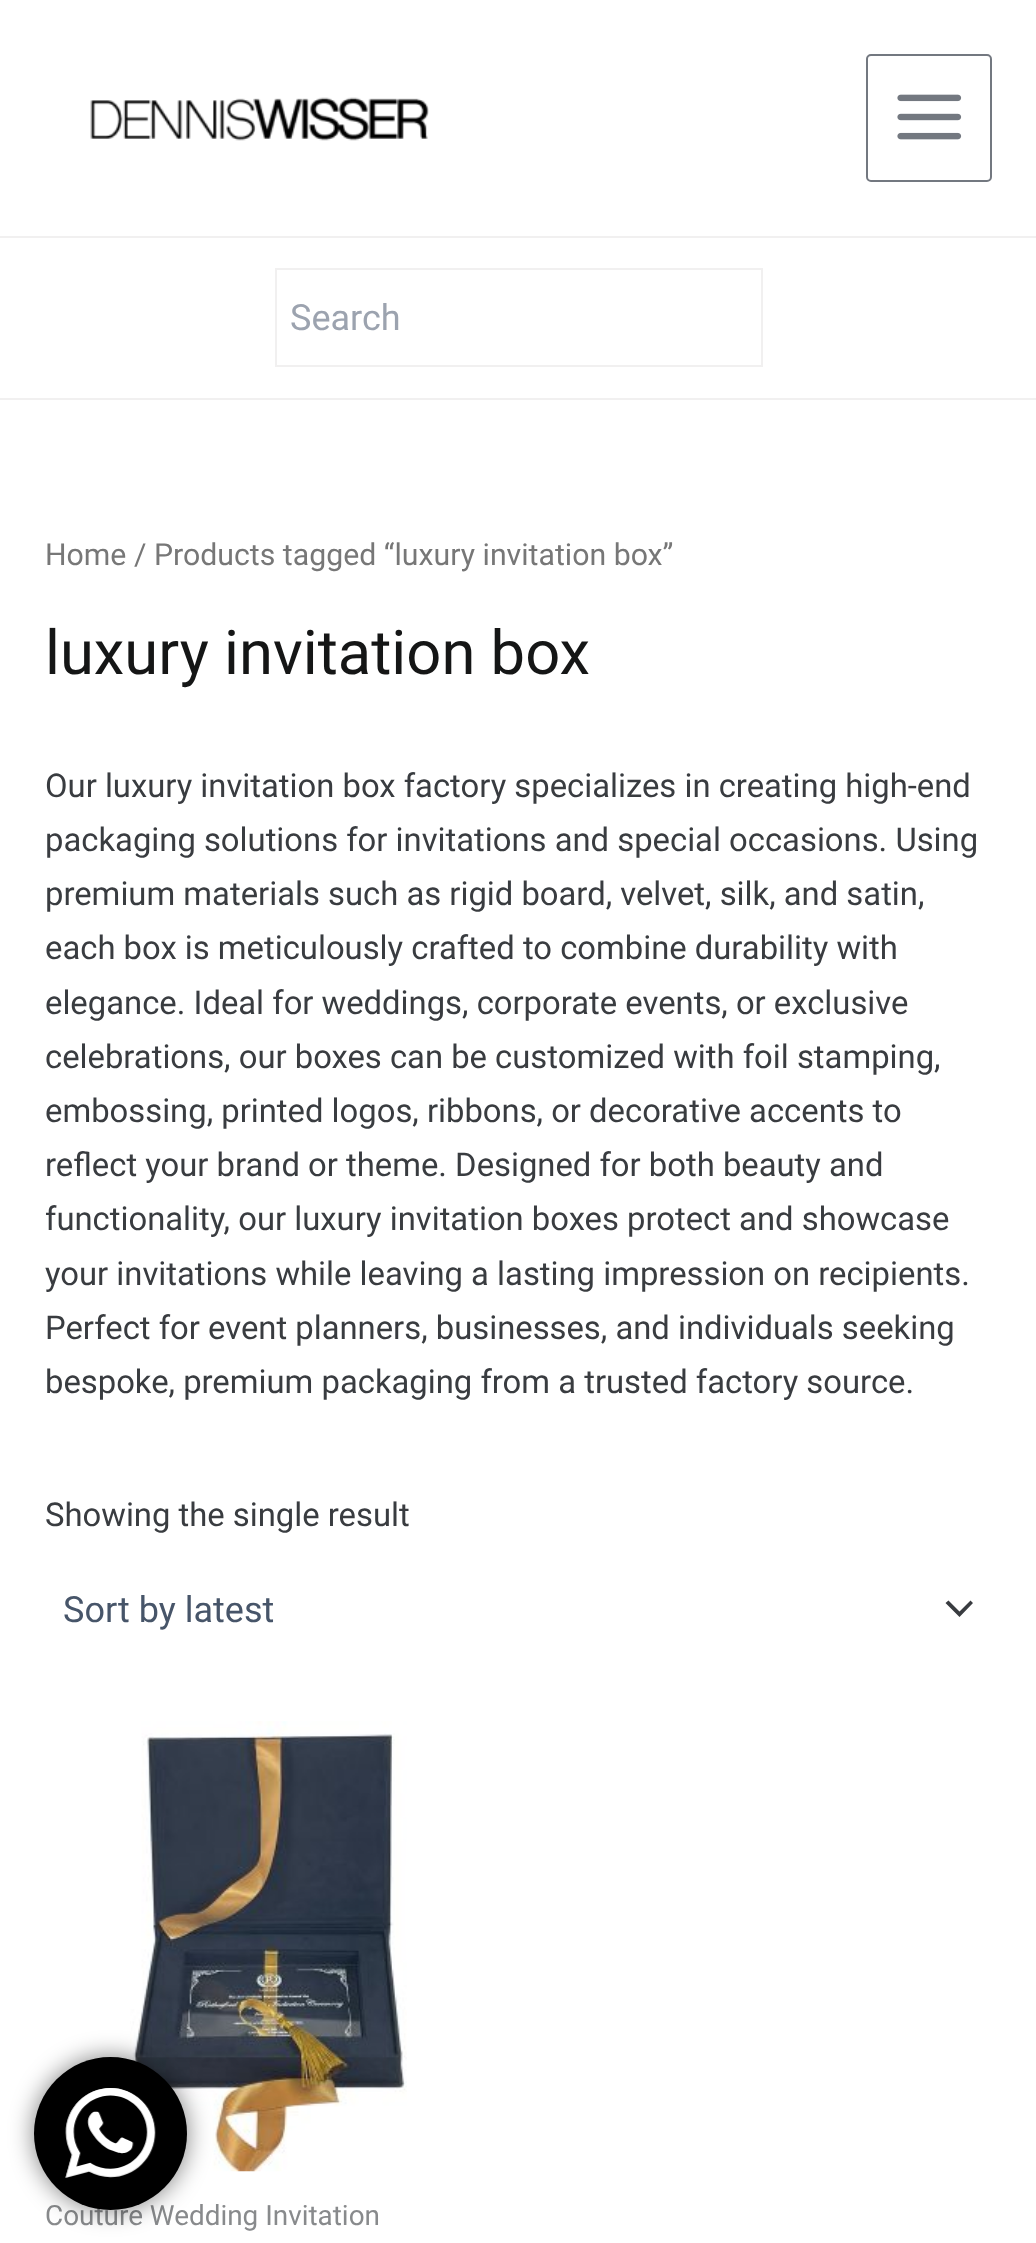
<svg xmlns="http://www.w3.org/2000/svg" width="1036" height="2243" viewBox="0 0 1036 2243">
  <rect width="100%" height="100%" fill="rgb(255,255,255)"/>
  <rect x="0" y="236" width="1036" height="2" fill="rgb(241,240,240)"/>
  <image x="90" y="97" width="339" height="44" href="pic1.png"/>
  <rect x="867" y="55" width="124" height="126" rx="4" fill="none" stroke="rgb(115,120,128)" stroke-width="2"/>
  <image x="897" y="94" width="65" height="46" href="pic2.png"/>
  <rect x="0" y="398" width="1036" height="2" fill="rgb(241,240,240)"/>
  <rect x="276" y="269" width="486" height="97" fill="none" stroke="rgb(241,240,240)" stroke-width="2"/>
  <text x="290" y="330" font-family="Roboto" font-size="36" fill="rgb(156,163,175)">Search</text>
  <g font-family="Roboto" font-size="30.25" fill="rgb(119,119,119)">
    <text x="45" y="565">Home</text>
    <text x="134" y="565">/ Products tagged “luxury invitation box”</text>
  </g>
  <text x="45" y="674" font-family="Roboto" font-size="61.5" fill="rgb(21,22,22)">luxury invitation box</text>
  <g font-family="Roboto" font-size="32.8" fill="rgb(57,60,64)">
    <text>
      <tspan x="45" y="797">Our luxury invitation box factory specializes in creating high-end</tspan>
      <tspan x="45" y="851">packaging solutions for invitations and special occasions. Using</tspan>
      <tspan x="45" y="905">premium materials such as rigid board, velvet, silk, and satin,</tspan>
      <tspan x="45" y="959">each box is meticulously crafted to combine durability with</tspan>
      <tspan x="45" y="1014">elegance. Ideal for weddings, corporate events, or exclusive</tspan>
      <tspan x="45" y="1068">celebrations, our boxes can be customized with foil stamping,</tspan>
      <tspan x="45" y="1122">embossing, printed logos, ribbons, or decorative accents to</tspan>
      <tspan x="45" y="1176">reflect your brand or theme. Designed for both beauty and</tspan>
      <tspan x="45" y="1230">functionality, our luxury invitation boxes protect and showcase</tspan>
      <tspan x="45" y="1285">your invitations while leaving a lasting impression on recipients.</tspan>
      <tspan x="45" y="1339">Perfect for event planners, businesses, and individuals seeking</tspan>
      <tspan x="45" y="1393">bespoke, premium packaging from a trusted factory source.</tspan>
    </text>
    <text x="45" y="1526">Showing the single result</text>
  </g>
  <path d="M945.5 1603L959.5 1617L973 1603L970.5 1600.5L959.5 1611.5L948.5 1600.5Z" fill="rgb(57,60,64)"/>
  <text x="63" y="1622" font-family="Roboto" font-size="36" fill="rgb(71,85,105)">Sort by latest</text>
  <image x="130" y="1721" width="277" height="451" href="pic3.png"/>
  <text x="45" y="2225" font-family="Roboto" font-size="27.9" fill="rgb(136,138,140)">Couture Wedding Invitation</text>
  <rect x="34" y="2057" width="153" height="153" rx="76.5" fill="rgba(0,0,0,0.5)" filter="blur(12.5px)"/>
  <circle cx="110.5" cy="2133.5" r="76.5" fill="rgb(0,0,0)"/>
  <image x="65" y="2088" width="91" height="90" href="pic4.png"/>
</svg>
